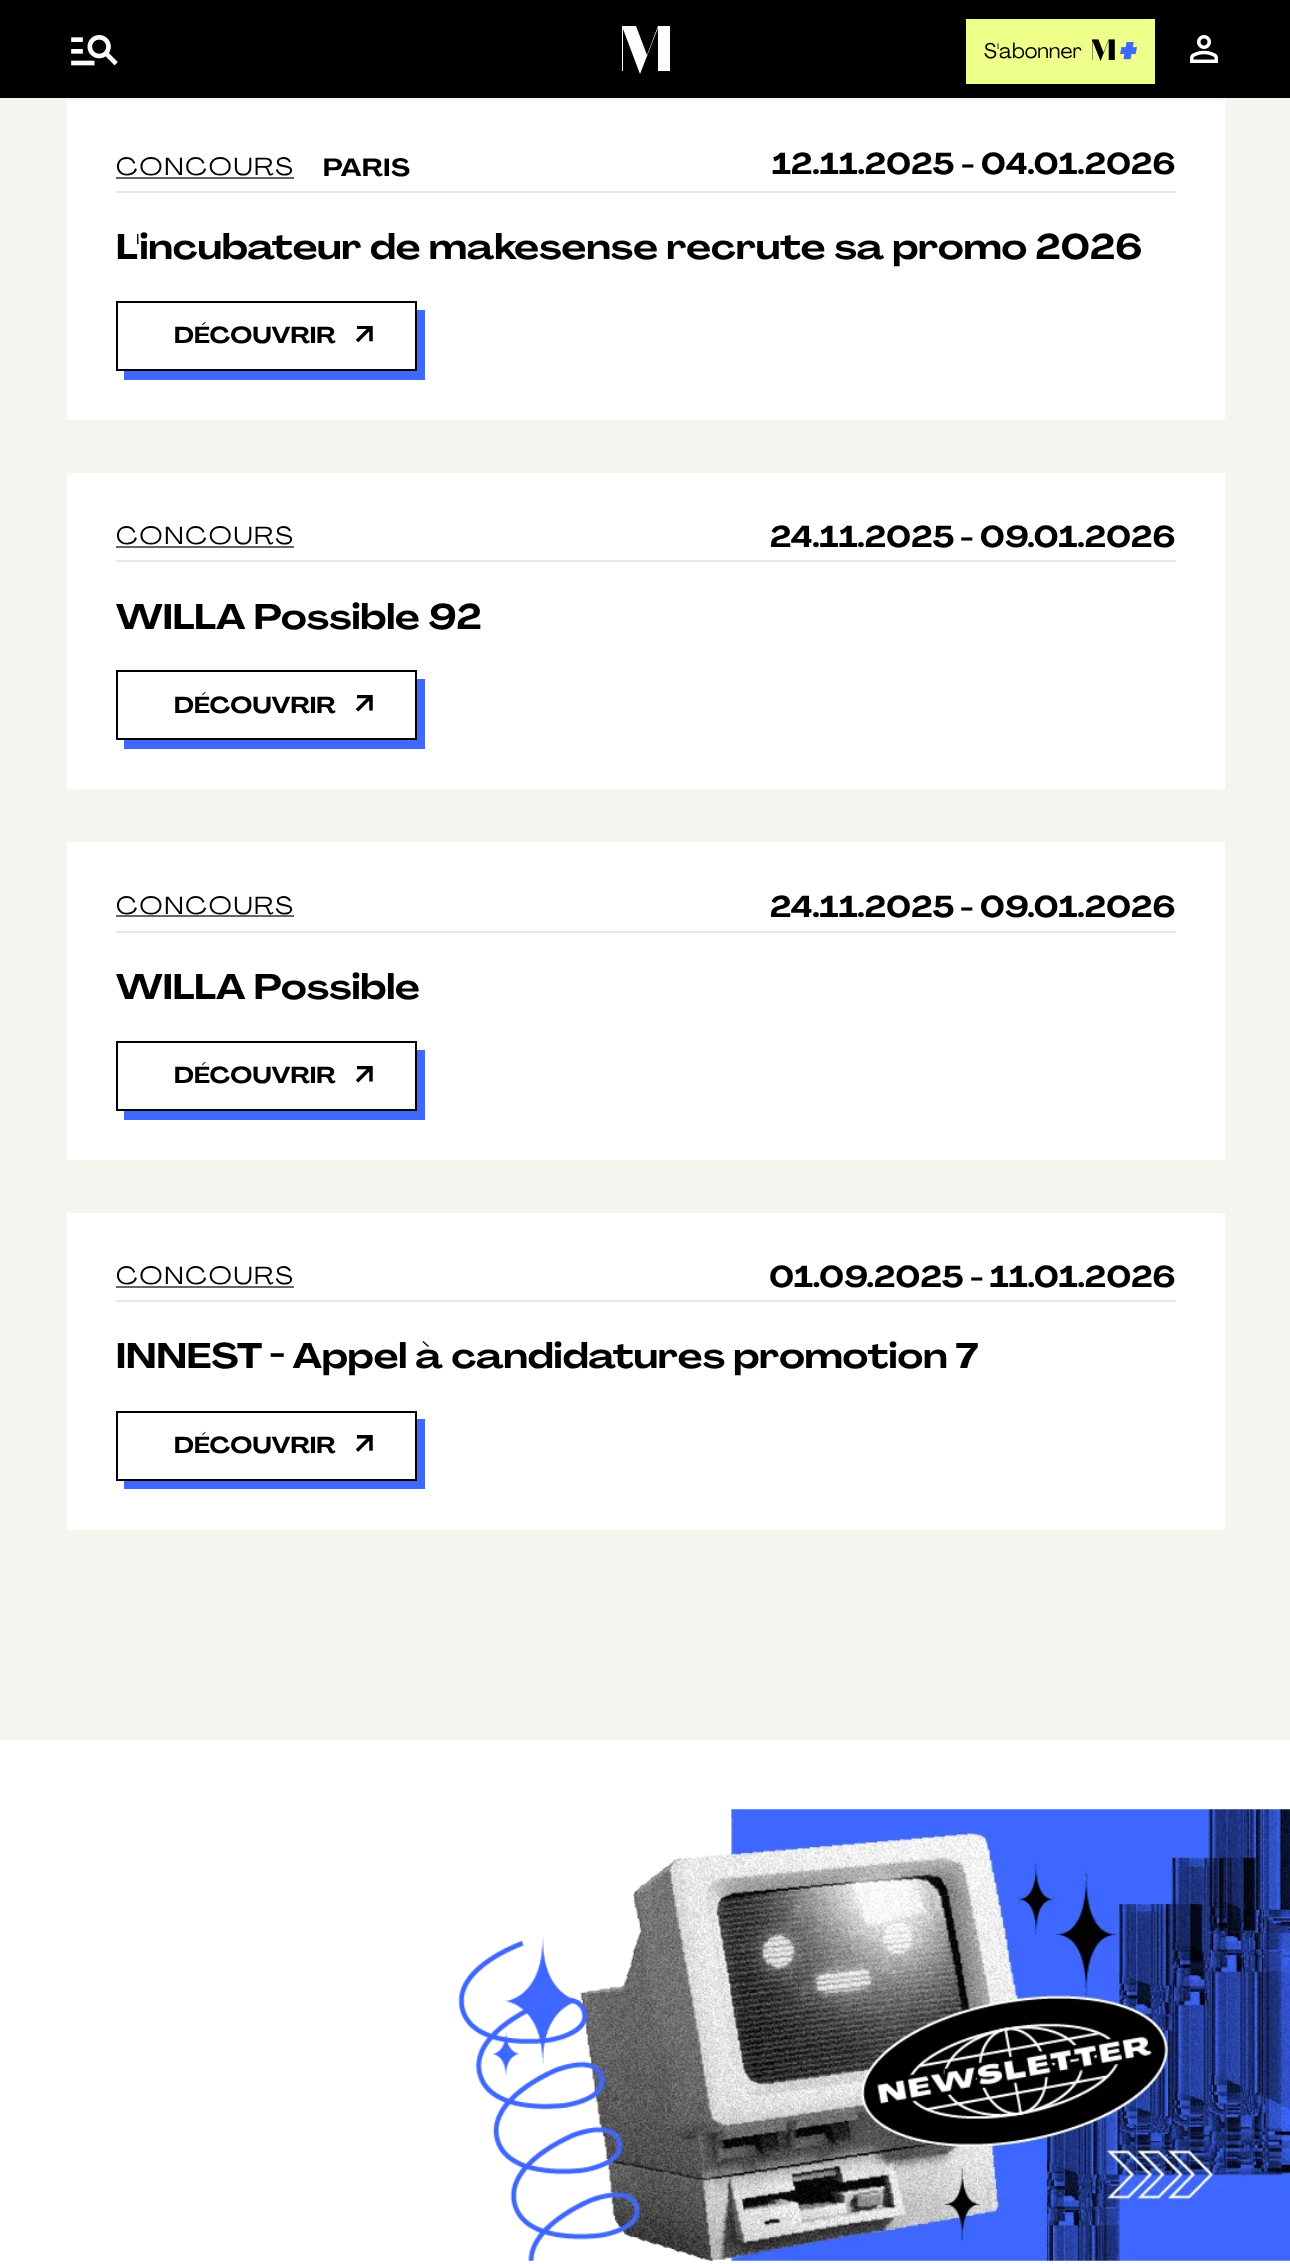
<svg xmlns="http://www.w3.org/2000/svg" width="1290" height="2264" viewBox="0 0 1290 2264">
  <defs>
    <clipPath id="clip1"><rect x="621" y="26" width="49" height="48"/></clipPath>
  </defs>
  <rect width="100%" height="100%" fill="rgb(245,244,238)"/>
  <rect x="0" y="0" width="1290" height="98" fill="rgb(0,0,0)"/>
  <image x="71" y="35" width="47" height="31" href="pic1.png"/>
  <g clip-path="url(#clip1)">
    <path d="M647 55L636 26H622V71H623V29L640 74L658 28V71H672V26H658Z" fill="rgb(255,255,255)" fill-rule="evenodd"/>
  </g>
  <rect x="966" y="19" width="189" height="65" fill="rgb(238,255,138)"/>
  <text x="984" y="58" font-family="'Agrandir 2'" font-size="21" fill="rgb(0,0,0)">S'abonner</text>
  <image x="1092" y="39" width="45" height="22" href="pic2.png"/>
  <image x="1190" y="35" width="28" height="28" href="pic3.png"/>
  <rect x="67" y="100" width="1158" height="320" fill="rgb(255,255,255)"/>
  <rect x="116" y="191" width="1060" height="2" fill="rgb(230,230,230)"/>
  <text x="116" y="175" font-family="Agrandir" font-size="24.5" letter-spacing="2" fill="rgb(0,0,0)">CONCOURS</text>
  <rect x="116" y="177" width="178" height="2" fill="rgb(102,102,102)"/>
  <text x="323" y="176" font-family="Agrandir" font-size="24.5" font-weight="bold" letter-spacing="0.5" fill="rgb(0,0,0)">PARIS</text>
  <g font-family="Agrandir" font-size="29.75" font-weight="bold" fill="rgb(0,0,0)">
    <text x="772" y="174">12.11.2025</text>
    <text x="961" y="174">- 04.01.2026</text>
  </g>
  <text x="116" y="259" font-family="Agrandir" font-size="35" font-weight="bold" fill="rgb(0,0,0)">L'incubateur de makesense recrute sa promo 2026</text>
  <path d="M124 371V380H425V310H416V371Z" fill="rgb(62,104,255)"/>
  <rect x="117" y="302" width="299" height="68" fill="none" stroke="rgb(0,0,0)" stroke-width="2"/>
  <text x="174" y="343" font-family="Agrandir" font-size="22.75" font-weight="bold" fill="rgb(0,0,0)">DÉCOUVRIR</text>
  <image x="355" y="326" width="18" height="17" href="pic4.png"/>
  <rect x="67" y="473" width="1158" height="316" fill="rgb(255,255,255)"/>
  <rect x="116" y="560" width="1060" height="2" fill="rgb(230,230,230)"/>
  <text x="116" y="544" font-family="Agrandir" font-size="24.5" letter-spacing="2" fill="rgb(0,0,0)">CONCOURS</text>
  <rect x="116" y="546" width="178" height="2" fill="rgb(102,102,102)"/>
  <g font-family="Agrandir" font-size="29.75" font-weight="bold" fill="rgb(0,0,0)">
    <text x="770" y="547">24.11.2025</text>
    <text x="960" y="547">- 09.01.2026</text>
  </g>
  <text x="116" y="629" font-family="Agrandir" font-size="35" font-weight="bold" fill="rgb(0,0,0)">WILLA Possible 92</text>
  <path d="M124 740V749H425V679H416V740Z" fill="rgb(62,104,255)"/>
  <rect x="117" y="671" width="299" height="68" fill="none" stroke="rgb(0,0,0)" stroke-width="2"/>
  <text x="174" y="713" font-family="Agrandir" font-size="22.75" font-weight="bold" fill="rgb(0,0,0)">DÉCOUVRIR</text>
  <image x="355" y="695" width="18" height="17" href="pic5.png"/>
  <rect x="67" y="842" width="1158" height="318" fill="rgb(255,255,255)"/>
  <rect x="116" y="931" width="1060" height="2" fill="rgb(230,230,230)"/>
  <text x="116" y="914" font-family="Agrandir" font-size="24.5" letter-spacing="2" fill="rgb(0,0,0)">CONCOURS</text>
  <rect x="116" y="915" width="178" height="2" fill="rgb(102,102,102)"/>
  <g font-family="Agrandir" font-size="29.75" font-weight="bold" fill="rgb(0,0,0)">
    <text x="770" y="917">24.11.2025</text>
    <text x="960" y="917">- 09.01.2026</text>
  </g>
  <text x="116" y="999" font-family="Agrandir" font-size="35" font-weight="bold" fill="rgb(0,0,0)">WILLA Possible</text>
  <path d="M124 1111V1120H425V1050H416V1111Z" fill="rgb(62,104,255)"/>
  <rect x="117" y="1042" width="299" height="68" fill="none" stroke="rgb(0,0,0)" stroke-width="2"/>
  <text x="174" y="1083" font-family="Agrandir" font-size="22.75" font-weight="bold" fill="rgb(0,0,0)">DÉCOUVRIR</text>
  <image x="355" y="1066" width="18" height="17" href="pic5.png"/>
  <rect x="67" y="1213" width="1158" height="317" fill="rgb(255,255,255)"/>
  <rect x="116" y="1300" width="1060" height="2" fill="rgb(230,230,230)"/>
  <text x="116" y="1284" font-family="Agrandir" font-size="24.5" letter-spacing="2" fill="rgb(0,0,0)">CONCOURS</text>
  <rect x="116" y="1286" width="178" height="2" fill="rgb(102,102,102)"/>
  <g font-family="Agrandir" font-size="29.75" font-weight="bold" fill="rgb(0,0,0)">
    <text x="769" y="1287">01.09.2025</text>
    <text x="970" y="1287">- 11.01.2026</text>
  </g>
  <text x="116" y="1368" font-family="Agrandir" font-size="35" font-weight="bold" fill="rgb(0,0,0)">INNEST - Appel à candidatures promotion 7</text>
  <path d="M124 1480V1489H425V1419H416V1480Z" fill="rgb(62,104,255)"/>
  <rect x="117" y="1412" width="299" height="68" fill="none" stroke="rgb(0,0,0)" stroke-width="2"/>
  <text x="174" y="1453" font-family="Agrandir" font-size="22.75" font-weight="bold" fill="rgb(0,0,0)">DÉCOUVRIR</text>
  <image x="355" y="1435" width="18" height="17" href="pic6.png"/>
  <rect x="0" y="1740" width="1290" height="524" fill="rgb(255,255,255)"/>
  <image x="458" y="1809" width="832" height="452" href="pic7.png"/>
</svg>
